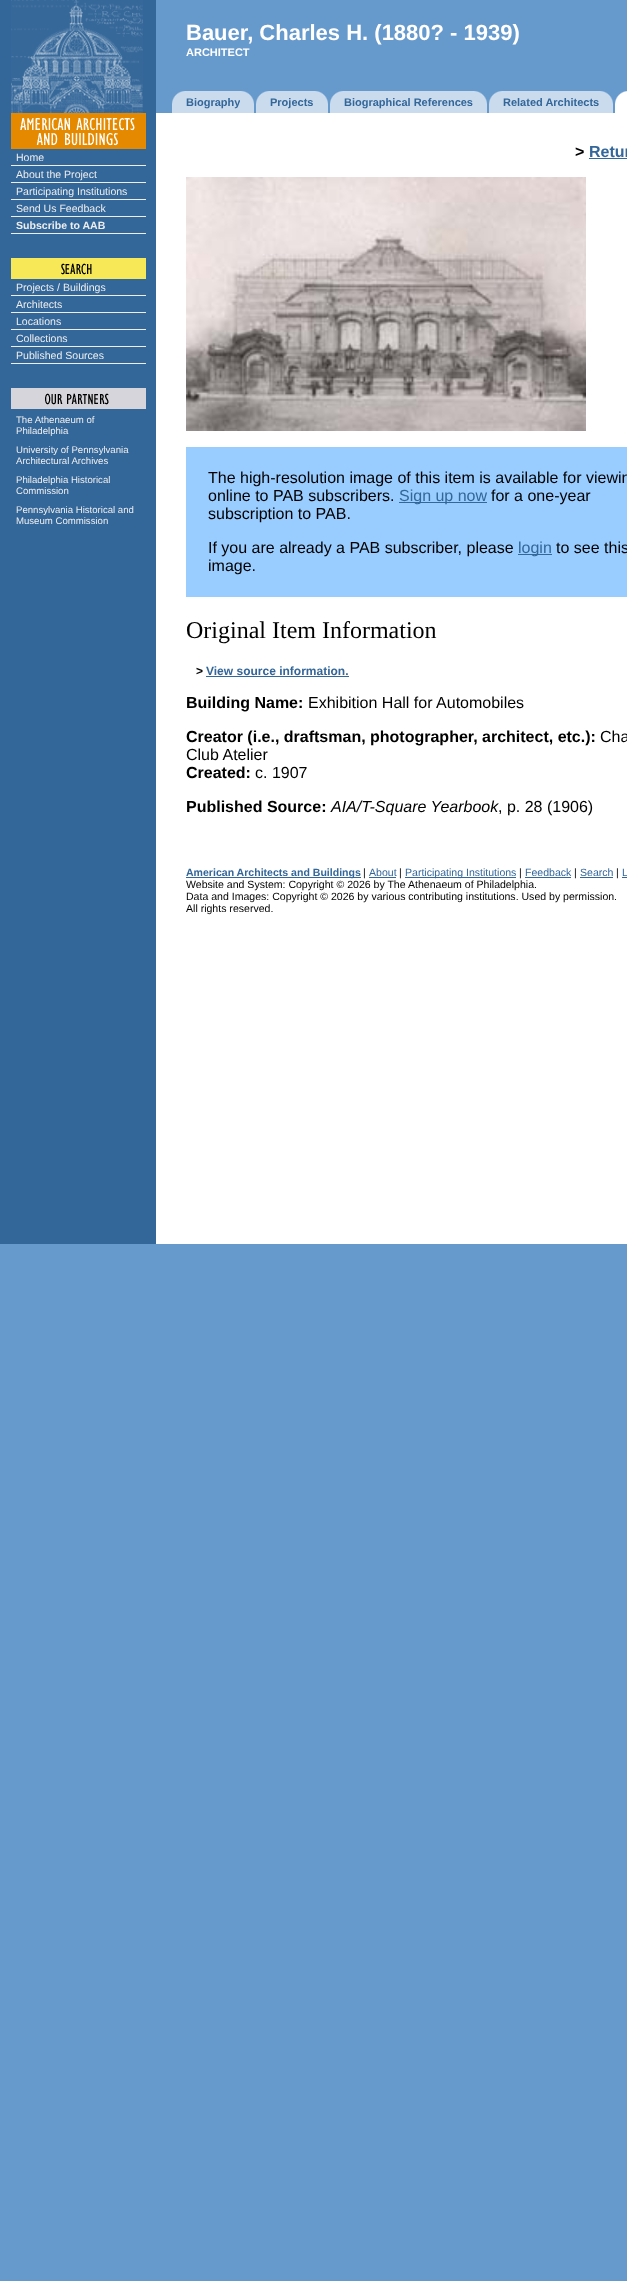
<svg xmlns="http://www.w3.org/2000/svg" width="627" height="2281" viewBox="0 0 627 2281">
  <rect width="100%" height="100%" fill="rgb(102,153,204)"/>
  <rect x="0" y="0" width="156" height="1244" fill="rgb(51,102,153)"/>
  <image x="11" y="0" width="132" height="113" href="pic1.png"/>
  <text x="186" y="40" font-family="Liberation Sans" font-size="22" font-weight="bold" fill="rgb(255,255,255)">Bauer, Charles H. (1880? - 1939)</text>
  <text x="186" y="56" font-family="Liberation Sans" font-size="11" font-weight="bold" fill="rgb(255,255,255)">ARCHITECT</text>
  <image x="172" y="91" width="14" height="22" href="pic2.png"/>
  <rect x="186" y="91" width="54" height="22" fill="rgb(202,219,237)"/>
  <text x="186" y="106" font-family="Liberation Sans" font-size="11" font-weight="bold" fill="rgb(51,102,153)">Biography</text>
  <image x="240" y="91" width="14" height="22" href="pic3.png"/>
  <image x="256" y="91" width="14" height="22" href="pic2.png"/>
  <rect x="270" y="91" width="44" height="22" fill="rgb(202,219,237)"/>
  <text x="270" y="106" font-family="Liberation Sans" font-size="11" font-weight="bold" fill="rgb(51,102,153)">Projects</text>
  <image x="314" y="91" width="14" height="22" href="pic3.png"/>
  <image x="330" y="91" width="14" height="22" href="pic2.png"/>
  <rect x="344" y="91" width="129" height="22" fill="rgb(202,219,237)"/>
  <text x="344" y="106" font-family="Liberation Sans" font-size="11" font-weight="bold" fill="rgb(51,102,153)">Biographical References</text>
  <image x="473" y="91" width="14" height="22" href="pic3.png"/>
  <image x="489" y="91" width="14" height="22" href="pic2.png"/>
  <rect x="503" y="91" width="96" height="22" fill="rgb(202,219,237)"/>
  <text x="503" y="106" font-family="Liberation Sans" font-size="11" font-weight="bold" fill="rgb(51,102,153)">Related Architects</text>
  <image x="599" y="91" width="14" height="22" href="pic3.png"/>
  <image x="615" y="91" width="12" height="22" href="pic4.png"/>
  <image x="11" y="113" width="135" height="36" href="pic5.png"/>
  <rect x="11" y="165" width="135" height="1" fill="rgb(238,238,238)"/>
  <text x="16" y="161" font-family="Liberation Sans" font-size="10.55" fill="rgb(238,238,238)">Home</text>
  <rect x="11" y="182" width="135" height="1" fill="rgb(238,238,238)"/>
  <text x="16" y="178" font-family="Liberation Sans" font-size="10.55" fill="rgb(238,238,238)">About the Project</text>
  <rect x="11" y="199" width="135" height="1" fill="rgb(238,238,238)"/>
  <text x="16" y="195" font-family="Liberation Sans" font-size="10.55" fill="rgb(238,238,238)">Participating Institutions</text>
  <rect x="11" y="216" width="135" height="1" fill="rgb(238,238,238)"/>
  <text x="16" y="212" font-family="Liberation Sans" font-size="10.55" fill="rgb(238,238,238)">Send Us Feedback</text>
  <rect x="11" y="233" width="135" height="1" fill="rgb(238,238,238)"/>
  <text x="16" y="229" font-family="Liberation Sans" font-size="10.55" font-weight="bold" fill="rgb(238,238,238)">Subscribe to AAB</text>
  <image x="11" y="258" width="135" height="21" href="pic6.png"/>
  <rect x="11" y="295" width="135" height="1" fill="rgb(238,238,238)"/>
  <text x="16" y="291" font-family="Liberation Sans" font-size="10.55" fill="rgb(238,238,238)">Projects / Buildings</text>
  <rect x="11" y="312" width="135" height="1" fill="rgb(238,238,238)"/>
  <text x="16" y="308" font-family="Liberation Sans" font-size="10.55" fill="rgb(238,238,238)">Architects</text>
  <rect x="11" y="329" width="135" height="1" fill="rgb(238,238,238)"/>
  <text x="16" y="325" font-family="Liberation Sans" font-size="10.55" fill="rgb(238,238,238)">Locations</text>
  <rect x="11" y="346" width="135" height="1" fill="rgb(238,238,238)"/>
  <text x="16" y="342" font-family="Liberation Sans" font-size="10.55" fill="rgb(238,238,238)">Collections</text>
  <rect x="11" y="363" width="135" height="1" fill="rgb(238,238,238)"/>
  <text x="16" y="359" font-family="Liberation Sans" font-size="10.55" fill="rgb(238,238,238)">Published Sources</text>
  <image x="11" y="388" width="135" height="21" href="pic7.png"/>
  <g font-family="Liberation Sans" font-size="9.6" fill="rgb(238,238,238)">
    <text>
      <tspan x="16" y="423">The Athenaeum of</tspan>
      <tspan x="16" y="434">Philadelphia</tspan>
      <tspan x="16" y="453">University of Pennsylvania</tspan>
      <tspan x="16" y="464">Architectural Archives</tspan>
      <tspan x="16" y="483">Philadelphia Historical</tspan>
      <tspan x="16" y="494">Commission</tspan>
      <tspan x="16" y="513">Pennsylvania Historical and</tspan>
      <tspan x="16" y="524">Museum Commission</tspan>
    </text>
  </g>
  <rect x="156" y="113" width="471" height="1131" fill="rgb(255,255,255)"/>
  <text x="575" y="157" font-family="Liberation Sans" font-size="16" font-weight="bold" fill="rgb(0,0,0)">&gt;</text>
  <text x="589" y="157" font-family="Liberation Sans" font-size="16" font-weight="bold" fill="rgb(51,102,153)">Retur</text>
  <rect x="589" y="158" width="38" height="1" fill="rgb(51,102,153)"/>
  <image x="186" y="177" width="400" height="254" href="pic8.png"/>
  <rect x="186" y="447" width="441" height="150" fill="rgb(153,204,255)"/>
  <g font-family="Liberation Sans" font-size="16" fill="rgb(0,0,0)">
    <text>
      <tspan x="208" y="483">The high-resolution image of this item is available for viewin</tspan>
      <tspan x="208" y="501">online to PAB subscribers.</tspan>
    </text>
  </g>
  <rect x="399" y="502" width="88" height="1" fill="rgb(51,102,153)"/>
  <text x="399" y="501" font-family="Liberation Sans" font-size="16" fill="rgb(51,102,153)">Sign up now</text>
  <g font-family="Liberation Sans" font-size="16" fill="rgb(0,0,0)">
    <text x="491" y="501">for a one-year</text>
    <text x="208" y="519">subscription to PAB.</text>
    <text x="208" y="553">If you are already a PAB subscriber, please</text>
  </g>
  <rect x="518" y="554" width="34" height="1" fill="rgb(51,102,153)"/>
  <text x="518" y="553" font-family="Liberation Sans" font-size="16" fill="rgb(51,102,153)">login</text>
  <g font-family="Liberation Sans" font-size="16" fill="rgb(0,0,0)">
    <text x="556" y="553">to see this</text>
    <text x="208" y="571">image.</text>
  </g>
  <text x="186" y="638" font-family="Liberation Serif" font-size="24" fill="rgb(0,0,0)">Original Item Information</text>
  <text x="196" y="675" font-family="Liberation Sans" font-size="12" font-weight="bold" fill="rgb(0,0,0)">&gt;</text>
  <text x="206" y="675" font-family="Liberation Sans" font-size="12" font-weight="bold" fill="rgb(51,102,153)">View source information.</text>
  <rect x="206" y="676" width="143" height="1" fill="rgb(51,102,153)"/>
  <text x="186" y="708" font-family="Liberation Sans" font-size="16" font-weight="bold" fill="rgb(0,0,0)">Building Name:</text>
  <text x="308" y="708" font-family="Liberation Sans" font-size="16" fill="rgb(0,0,0)">Exhibition Hall for Automobiles</text>
  <text x="186" y="742" font-family="Liberation Sans" font-size="16" font-weight="bold" fill="rgb(0,0,0)">Creator (i.e., draftsman, photographer, architect, etc.):</text>
  <g font-family="Liberation Sans" font-size="16" fill="rgb(0,0,0)">
    <text x="600" y="742">Cha</text>
    <text x="186" y="760">Club Atelier</text>
  </g>
  <text x="186" y="778" font-family="Liberation Sans" font-size="16" font-weight="bold" fill="rgb(0,0,0)">Created:</text>
  <text x="255" y="778" font-family="Liberation Sans" font-size="16" fill="rgb(0,0,0)">c. 1907</text>
  <text x="186" y="812" font-family="Liberation Sans" font-size="16" font-weight="bold" fill="rgb(0,0,0)">Published Source:</text>
  <text x="331" y="812" font-family="Liberation Sans" font-size="16" font-style="italic" fill="rgb(0,0,0)">AIA/T-Square Yearbook</text>
  <text x="498" y="812" font-family="Liberation Sans" font-size="16" fill="rgb(0,0,0)">, p. 28 (1906)</text>
  <rect x="186" y="877" width="175" height="1" fill="rgb(51,102,153)"/>
  <text x="186" y="876" font-family="Liberation Sans" font-size="10.55" font-weight="bold" fill="rgb(51,102,153)">American Architects and Buildings</text>
  <text x="363" y="876" font-family="Liberation Sans" font-size="10.55" fill="rgb(0,0,0)">|</text>
  <text x="369" y="876" font-family="Liberation Sans" font-size="10.55" fill="rgb(51,102,153)">About</text>
  <rect x="369" y="877" width="27" height="1" fill="rgb(51,102,153)"/>
  <text x="399" y="876" font-family="Liberation Sans" font-size="10.55" fill="rgb(0,0,0)">|</text>
  <rect x="405" y="877" width="111" height="1" fill="rgb(51,102,153)"/>
  <text x="405" y="876" font-family="Liberation Sans" font-size="10.55" fill="rgb(51,102,153)">Participating Institutions</text>
  <text x="519" y="876" font-family="Liberation Sans" font-size="10.55" fill="rgb(0,0,0)">|</text>
  <text x="525" y="876" font-family="Liberation Sans" font-size="10.55" fill="rgb(51,102,153)">Feedback</text>
  <rect x="525" y="877" width="46" height="1" fill="rgb(51,102,153)"/>
  <text x="574" y="876" font-family="Liberation Sans" font-size="10.55" fill="rgb(0,0,0)">|</text>
  <text x="580" y="876" font-family="Liberation Sans" font-size="10.55" fill="rgb(51,102,153)">Search</text>
  <rect x="580" y="877" width="33" height="1" fill="rgb(51,102,153)"/>
  <text x="616" y="876" font-family="Liberation Sans" font-size="10.55" fill="rgb(0,0,0)">|</text>
  <rect x="622" y="877" width="5" height="1" fill="rgb(51,102,153)"/>
  <text x="622" y="876" font-family="Liberation Sans" font-size="10.55" fill="rgb(51,102,153)">L</text>
  <g font-family="Liberation Sans" font-size="10.55" fill="rgb(0,0,0)">
    <text>
      <tspan x="186" y="888">Website and System: Copyright © 2026 by The Athenaeum of Philadelphia.</tspan>
      <tspan x="186" y="900">Data and Images: Copyright © 2026 by various contributing institutions. Used by permission.</tspan>
      <tspan x="186" y="912">All rights reserved.</tspan>
    </text>
  </g>
</svg>
